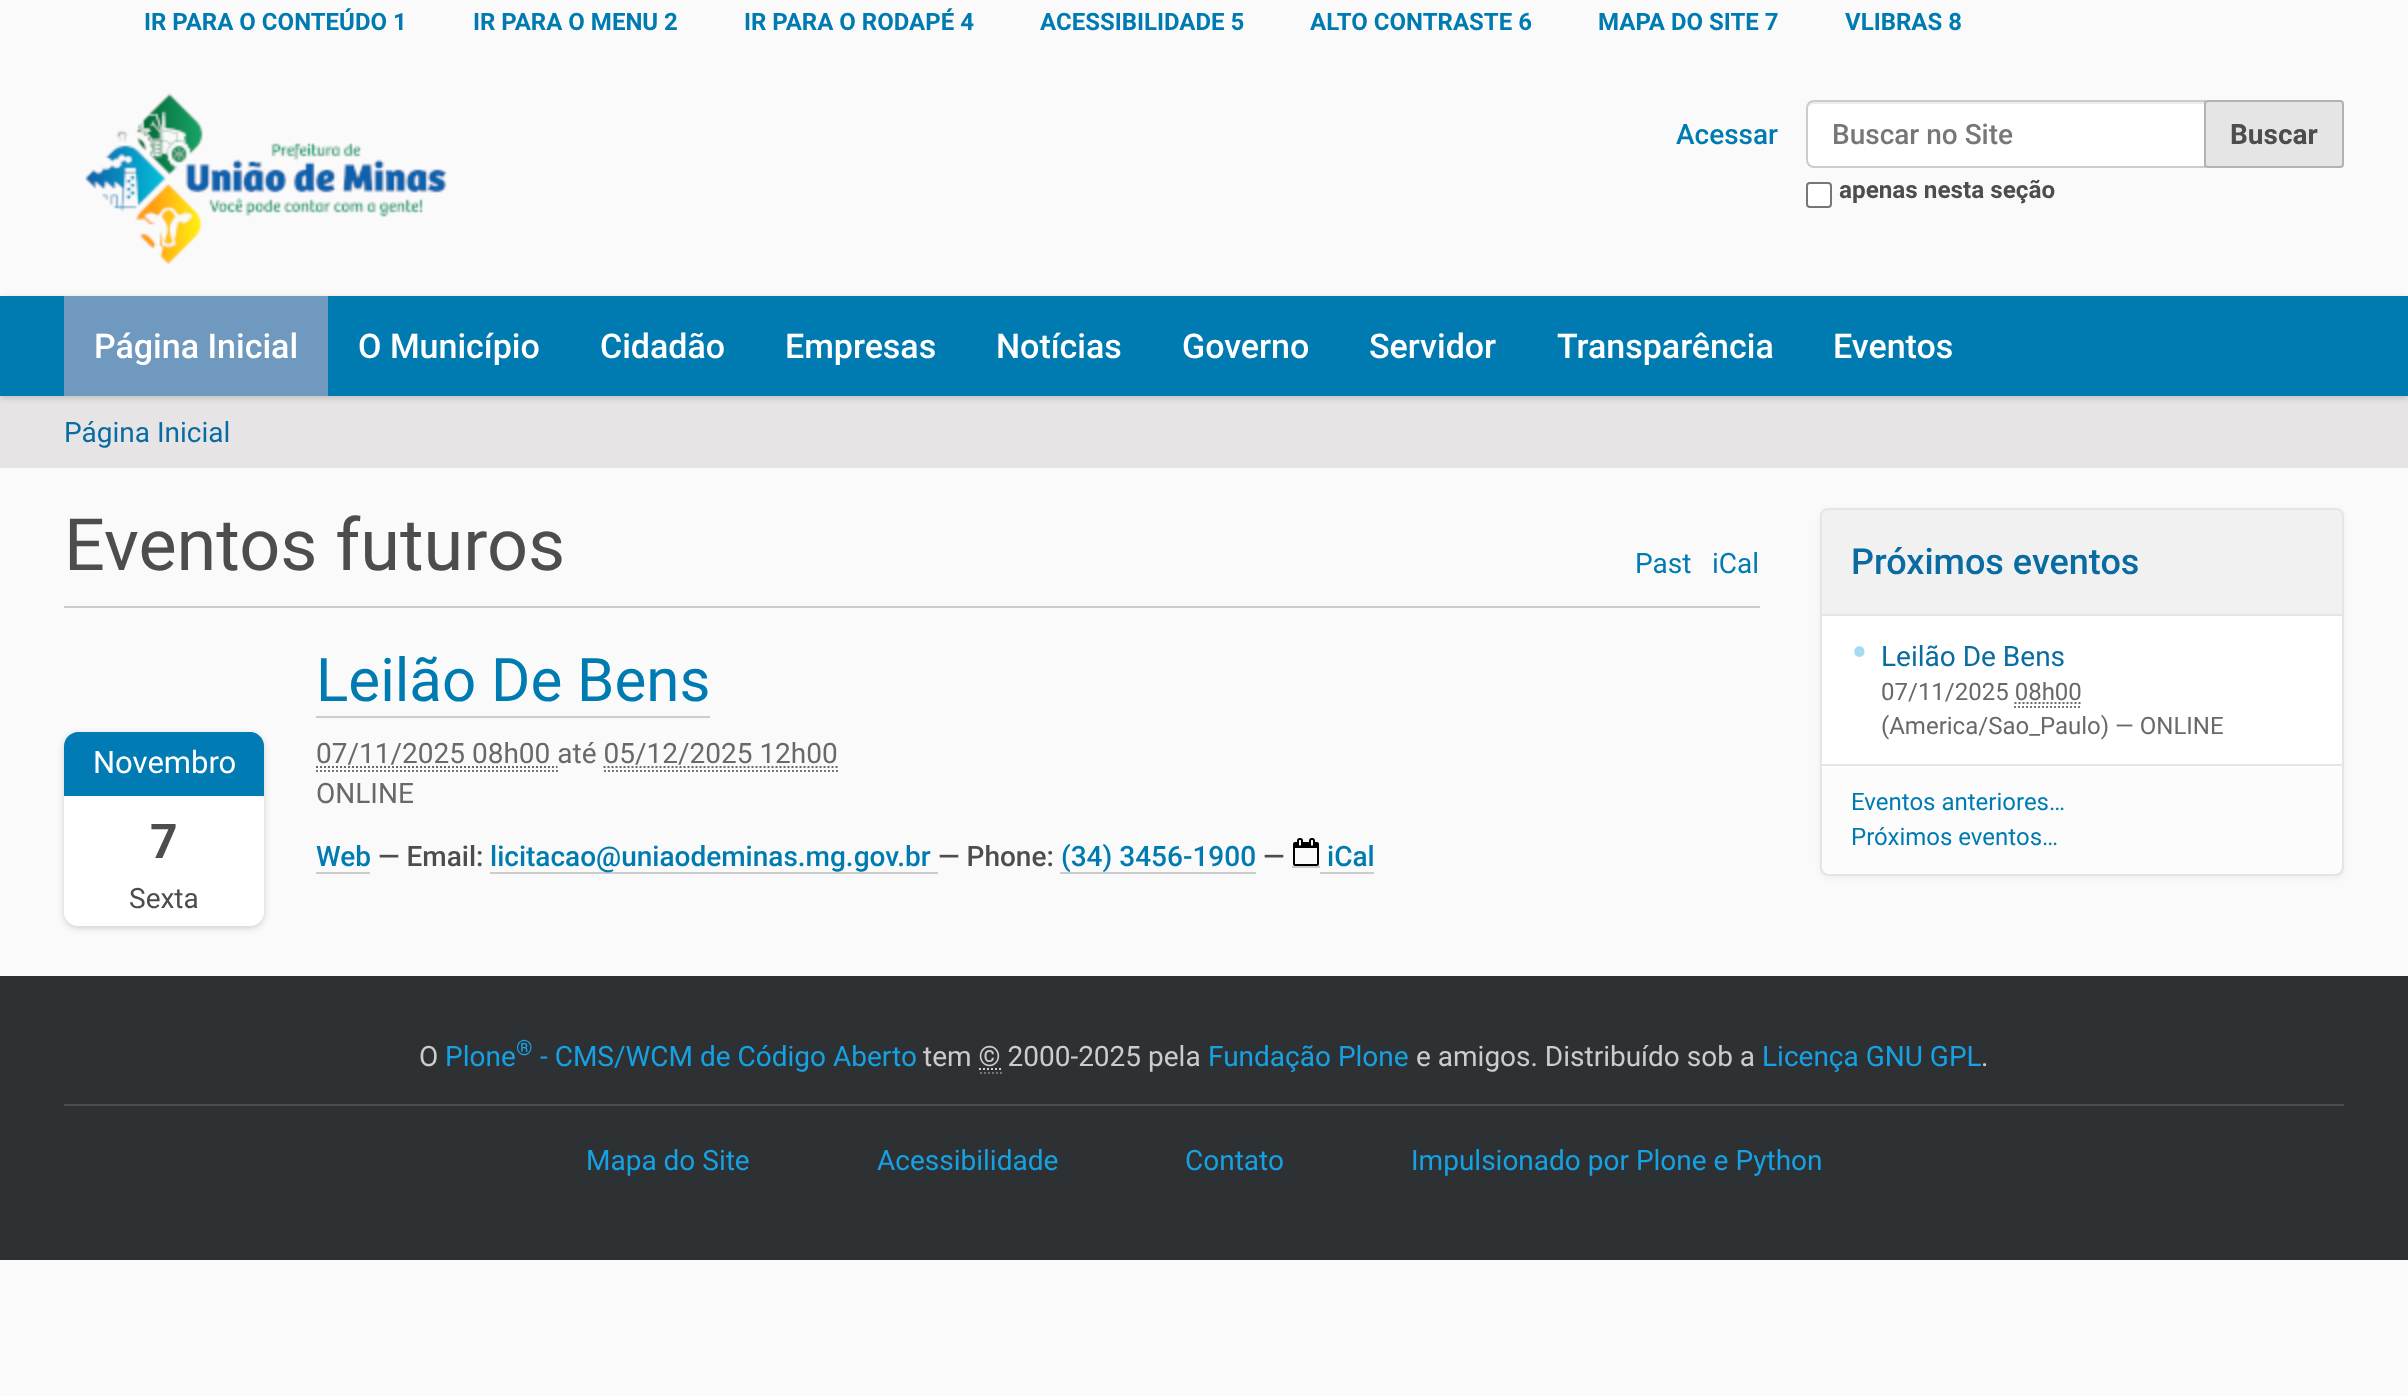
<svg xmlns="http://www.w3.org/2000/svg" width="2408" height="1396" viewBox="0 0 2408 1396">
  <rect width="100%" height="100%" fill="rgb(250,250,250)"/>
  <g font-family="Roboto" font-size="24" font-weight="bold" fill="rgb(0,123,177)">
    <text x="144" y="30">IR PARA O CONTEÚDO 1</text>
    <text x="473" y="30">IR PARA O MENU 2</text>
    <text x="744" y="30">IR PARA O RODAPÉ 4</text>
    <text x="1040" y="30">ACESSIBILIDADE 5</text>
    <text x="1310" y="30">ALTO CONTRASTE 6</text>
    <text x="1598" y="30">MAPA DO SITE 7</text>
    <text x="1845" y="30">VLIBRAS 8</text>
  </g>
  <image x="85" y="93" width="362" height="172" href="pic1.png"/>
  <text x="1676" y="144" font-family="Roboto" font-size="28" font-weight="500" fill="rgb(0,123,177)">Acessar</text>
  <path d="M1814 100H2206V168H1814C1809.5 168 1806 164.5 1806 160V108C1806 103.5 1809.5 100 1814 100Z" fill="rgb(255,255,255)"/>
  <path d="M1814 104H2204V102H1814C1809 102 1808 106 1808 110C1808 107 1811 104 1814 104Z" fill="rgb(236,236,236)"/>
  <path d="M1814 101H2205V167H1814C1810 167 1807 164 1807 160V108C1807 104 1810 101 1814 101Z" fill="none" stroke="rgb(204,204,204)" stroke-width="2"/>
  <text x="1832" y="144" font-family="Roboto" font-size="28" font-weight="500" fill="rgb(119,119,119)">Buscar no Site</text>
  <rect x="2205" y="101" width="138" height="66" rx="3" fill="rgb(229,229,229)" stroke="rgb(178,178,178)" stroke-width="2"/>
  <text x="2230" y="144" font-family="Roboto" font-size="28" font-weight="bold" fill="rgb(77,77,77)">Buscar</text>
  <rect x="1807" y="183" width="24" height="24" rx="3" fill="rgb(255,255,255)" stroke="rgb(118,118,118)" stroke-width="2"/>
  <text x="1839" y="198" font-family="Roboto" font-size="24.25" font-weight="bold" fill="rgb(77,77,77)">apenas nesta seção</text>
  <rect x="0" y="396" width="2408" height="72" fill="rgb(230,228,228)"/>
  <rect x="0" y="298" width="2408" height="100" fill="rgba(0,0,0,0.17)" filter="blur(3px)"/>
  <rect x="0" y="296" width="2408" height="100" fill="rgb(0,123,177)"/>
  <rect x="64" y="296" width="264" height="100" fill="rgb(112,153,191)"/>
  <g font-family="Roboto" font-size="34" font-weight="500" fill="rgb(255,255,255)">
    <text x="94" y="358">Página Inicial</text>
    <text x="358" y="358">O Município</text>
    <text x="600" y="358">Cidadão</text>
    <text x="785" y="358">Empresas</text>
    <text x="996" y="358">Notícias</text>
    <text x="1182" y="358">Governo</text>
    <text x="1369" y="358">Servidor</text>
    <text x="1557" y="358">Transparência</text>
    <text x="1833" y="358">Eventos</text>
  </g>
  <text x="64" y="442" font-family="Roboto" font-size="28" fill="rgb(8,108,163)">Página Inicial</text>
  <rect x="64" y="606" width="1696" height="2" fill="rgb(204,204,204)"/>
  <text x="64" y="570" font-family="Roboto" font-size="72" fill="rgb(77,77,77)">Eventos futuros</text>
  <g font-family="Roboto" font-size="28" fill="rgb(0,123,177)">
    <text x="1635" y="573">Past</text>
    <text x="1712" y="573">iCal</text>
  </g>
  <rect x="64" y="734" width="200" height="194" rx="14" fill="rgba(0,0,0,0.17)" filter="blur(3px)"/>
  <rect x="64" y="732" width="200" height="194" rx="14" fill="rgb(255,255,255)"/>
  <path d="M78 732H250C257.5 732 264 738.5 264 746V796H64V746C64 738.5 70.5 732 78 732Z" fill="rgb(0,123,179)"/>
  <text x="93" y="773" font-family="Roboto" font-size="31" fill="rgb(255,255,255)">Novembro</text>
  <text x="150" y="858" font-family="Roboto" font-size="48" font-weight="bold" fill="rgb(77,77,77)">7</text>
  <text x="129" y="908" font-family="Roboto" font-size="28" fill="rgb(77,77,77)">Sexta</text>
  <text x="316" y="701" font-family="Roboto" font-size="60" fill="rgb(0,123,177)">Leilão De Bens</text>
  <rect x="316" y="716" width="394" height="2" fill="rgb(204,204,204)"/>
  <text x="316" y="763" font-family="Roboto" font-size="28" fill="rgb(105,105,105)">07/11/2025 08h00 até 05/12/2025 12h00</text>
  <path d="M316 771H558" fill="none" stroke="rgb(119,119,119)" stroke-width="2" stroke-dasharray="2 2"/>
  <path d="M316 767H472" fill="none" stroke="rgb(105,105,105)" stroke-width="2" stroke-dasharray="2 2"/>
  <path d="M472 767H557.5" fill="none" stroke="rgb(105,105,105)" stroke-width="2" stroke-dasharray="2 2"/>
  <path d="M603.5 767H759.5" fill="none" stroke="rgb(105,105,105)" stroke-width="2" stroke-dasharray="2 2"/>
  <path d="M759.5 767H838" fill="none" stroke="rgb(105,105,105)" stroke-width="2" stroke-dasharray="2 2"/>
  <path d="M604 771H838" fill="none" stroke="rgb(119,119,119)" stroke-width="2" stroke-dasharray="2 2"/>
  <text x="316" y="803" font-family="Roboto" font-size="28" fill="rgb(105,105,105)">ONLINE</text>
  <text x="316" y="866" font-family="Roboto" font-size="28" font-weight="500" fill="rgb(0,123,177)">Web</text>
  <rect x="316" y="872" width="54" height="2" fill="rgb(204,204,204)"/>
  <text x="378" y="866" font-family="Roboto" font-size="28" font-weight="500" fill="rgb(77,77,77)">— Email:</text>
  <rect x="490" y="872" width="448" height="2" fill="rgb(204,204,204)"/>
  <text x="490" y="866" font-family="Roboto" font-size="28" font-weight="500" fill="rgb(0,123,177)">licitacao@uniaodeminas.mg.gov.br</text>
  <text x="938" y="866" font-family="Roboto" font-size="28" font-weight="500" fill="rgb(77,77,77)">— Phone:</text>
  <rect x="1060" y="872" width="196" height="2" fill="rgb(204,204,204)"/>
  <text x="1061" y="866" font-family="Roboto" font-size="28" font-weight="500" fill="rgb(0,123,177)">(34) 3456-1900</text>
  <text x="1263" y="866" font-family="Roboto" font-size="28" font-weight="500" fill="rgb(77,77,77)">—</text>
  <image x="1293" y="838" width="26" height="28" href="pic2.png"/>
  <text x="1327" y="866" font-family="Roboto" font-size="28" font-weight="500" fill="rgb(0,123,177)">iCal</text>
  <rect x="1292" y="866" width="28" height="2" fill="rgb(204,204,204)"/>
  <rect x="1320" y="872" width="54" height="2" fill="rgb(204,204,204)"/>
  <rect x="1820" y="510" width="524" height="368" rx="8" fill="rgba(0,0,0,0.05)" filter="blur(3px)"/>
  <rect x="1821" y="509" width="522" height="366" rx="7" fill="none" stroke="rgb(229,229,229)" stroke-width="2"/>
  <path d="M1830 510H2334C2338.5 510 2342 513.5 2342 518V614H1822V518C1822 513.5 1825.5 510 1830 510Z" fill="rgb(242,241,241)"/>
  <text x="1851" y="574" font-family="Roboto" font-size="36" font-weight="500" fill="rgb(8,108,163)">Próximos eventos</text>
  <rect x="1822" y="616" width="520" height="148" fill="rgb(255,255,255)"/>
  <rect x="1822" y="614" width="520" height="2" fill="rgb(229,229,229)"/>
  <text x="1851" y="670" font-family="Roboto" font-size="50" fill="rgb(167,218,242)">•</text>
  <text x="1881" y="666" font-family="Roboto" font-size="28" fill="rgb(8,108,163)">Leilão De Bens</text>
  <text x="1881" y="700" font-family="Roboto" font-size="24" fill="rgb(105,105,105)">07/11/2025 08h00</text>
  <path d="M2014.5 703H2082" fill="none" stroke="rgb(105,105,105)" stroke-width="2" stroke-dasharray="2 2"/>
  <path d="M2014 707H2082" fill="none" stroke="rgb(119,119,119)" stroke-width="2" stroke-dasharray="2 2"/>
  <text x="1881" y="734" font-family="Roboto" font-size="24" fill="rgb(105,105,105)">(America/Sao_Paulo) — ONLINE</text>
  <path d="M1822 764H2342V866C2342 870.5 2338.5 874 2334 874H1830C1825.5 874 1822 870.5 1822 866Z" fill="rgb(252,252,253)"/>
  <rect x="1822" y="764" width="520" height="2" fill="rgb(229,229,229)"/>
  <g font-family="Roboto" font-size="24" fill="rgb(0,123,177)">
    <text>
      <tspan x="1851" y="810">Eventos anteriores…</tspan>
      <tspan x="1851" y="845">Próximos eventos…</tspan>
    </text>
  </g>
  <rect x="0" y="976" width="2408" height="284" fill="rgb(46,49,51)"/>
  <rect x="64" y="1104" width="2280" height="2" fill="rgb(77,77,77)"/>
  <text x="419" y="1066" font-family="Roboto" font-size="28" fill="rgb(204,204,204)">O</text>
  <text x="445" y="1066" font-family="Roboto" font-size="28" fill="rgb(22,161,227)">Plone</text>
  <text x="516" y="1055" font-family="Roboto" font-size="21" fill="rgb(22,161,227)">®</text>
  <text x="540" y="1066" font-family="Roboto" font-size="28" fill="rgb(22,161,227)">- CMS/WCM de Código Aberto</text>
  <text x="923" y="1066" font-family="Roboto" font-size="28" fill="rgb(204,204,204)">tem © 2000-2025 pela</text>
  <text x="1208" y="1066" font-family="Roboto" font-size="28" fill="rgb(22,161,227)">Fundação Plone</text>
  <text x="1416" y="1066" font-family="Roboto" font-size="28" fill="rgb(204,204,204)">e amigos. Distribuído sob a</text>
  <text x="1762" y="1066" font-family="Roboto" font-size="28" fill="rgb(22,161,227)">Licença GNU GPL</text>
  <text x="1981" y="1066" font-family="Roboto" font-size="28" fill="rgb(204,204,204)">.</text>
  <path d="M979 1069H1001" fill="none" stroke="rgb(204,204,204)" stroke-width="2" stroke-dasharray="2 2"/>
  <path d="M980 1073H1002" fill="none" stroke="rgb(119,119,119)" stroke-width="2" stroke-dasharray="2 2"/>
  <g font-family="Roboto" font-size="28" fill="rgb(22,161,227)">
    <text x="586" y="1170">Mapa do Site</text>
    <text x="877" y="1170">Acessibilidade</text>
    <text x="1185" y="1170">Contato</text>
    <text x="1411" y="1170">Impulsionado por Plone e Python</text>
  </g>
</svg>
